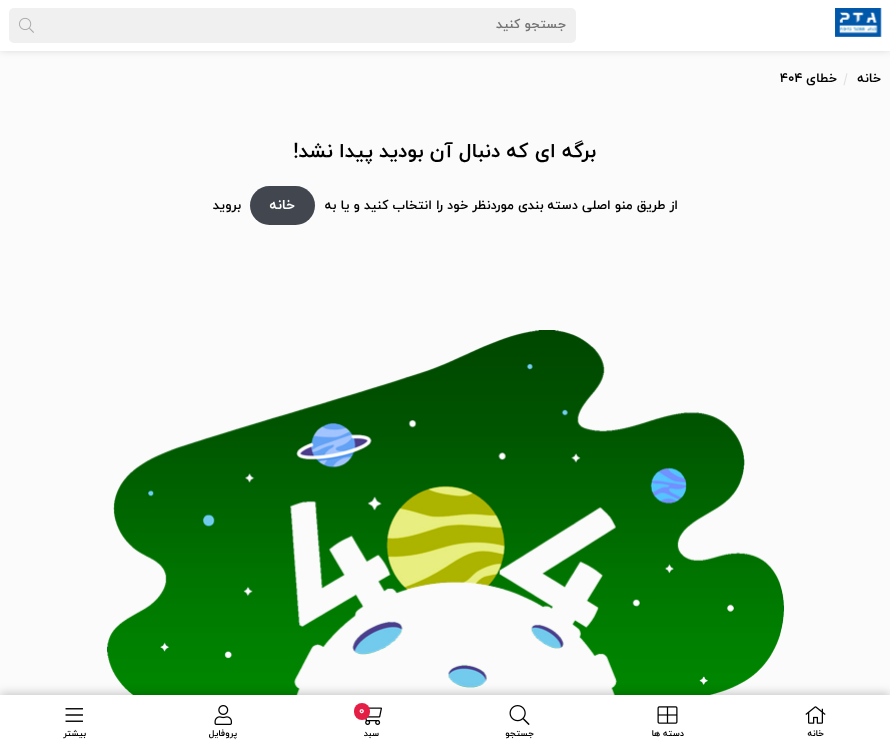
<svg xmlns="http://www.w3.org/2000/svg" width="890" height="745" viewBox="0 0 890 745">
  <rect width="100%" height="100%" fill="rgb(252,251,251)"/>
  <rect x="0" y="-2" width="890" height="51" fill="rgba(0,0,0,0.2)" filter="blur(5px)"/>
  <rect x="0" y="0" width="890" height="51" fill="rgb(255,255,255)"/>
  <image x="835" y="8" width="47" height="29" href="pic1.png"/>
  <rect x="9" y="8" width="567" height="35" rx="5" fill="rgb(240,240,241)"/>
  <text x="566" y="28" font-family="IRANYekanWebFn" font-size="13" font-weight="bold" direction="rtl" fill="rgb(117,117,117)">جستجو كنيد</text>
  <image x="19" y="17" width="15" height="16" href="pic2.png"/>
  <text x="881" y="82" font-family="IRANYekanWebFn" font-size="13" font-weight="bold" direction="rtl" fill="rgb(0,0,0)">خانه</text>
  <path d="M846.5 73L847.5 73.5L844.5 85.5L843.5 85Z" fill="rgb(224,224,226)"/>
  <text x="837" y="82" font-family="IRANYekanWebFn" font-size="13" font-weight="bold" direction="rtl" fill="rgb(0,0,0)">خطای</text>
  <text x="780" y="82" font-family="IRANYekanWebFn" font-size="13" font-weight="bold" fill="rgb(0,0,0)">404</text>
  <text x="596" y="157" font-family="IRANYekanWebFn" font-size="20" font-weight="bold" direction="rtl" fill="rgb(0,0,0)">برگه ای که دنبال آن بودید پیدا نشد!</text>
  <text x="678" y="209" font-family="IRANYekanWebFn" font-size="13" font-weight="bold" direction="rtl" fill="rgb(0,0,0)">از طریق منو اصلی دسته بندی موردنظر خود را انتخاب کنید و یا به</text>
  <rect x="250" y="186" width="65" height="39" rx="19.5" fill="rgb(65,70,79)"/>
  <text x="295" y="209" font-family="IRANYekanWebFn" font-size="14" font-weight="bold" direction="rtl" fill="rgb(255,255,255)">خانه</text>
  <text x="241" y="209" font-family="IRANYekanWebFn" font-size="13" font-weight="bold" direction="rtl" fill="rgb(0,0,0)">بروید</text>
  <image x="107" y="330" width="677" height="365" href="pic3.png"/>
  <rect x="0" y="693" width="890" height="50" fill="rgba(0,0,0,0.2)" filter="blur(5px)"/>
  <rect x="0" y="695" width="890" height="50" fill="rgb(255,255,255)"/>
  <image x="805" y="706" width="21" height="18" href="pic4.png"/>
  <text x="824" y="736" font-family="IRANYekanWebFn" font-size="9" font-weight="bold" direction="rtl" fill="rgb(0,0,0)">خانه</text>
  <image x="657" y="706" width="21" height="18" href="pic5.png"/>
  <text x="684" y="736" font-family="IRANYekanWebFn" font-size="9" font-weight="bold" direction="rtl" fill="rgb(0,0,0)">دسته ها</text>
  <image x="509" y="705" width="21" height="20" href="pic6.png"/>
  <text x="534" y="736" font-family="IRANYekanWebFn" font-size="9" font-weight="bold" direction="rtl" fill="rgb(0,0,0)">جستجو</text>
  <image x="365" y="707" width="17" height="18" href="pic7.png"/>
  <rect x="354" y="703" width="16" height="17" rx="8" fill="rgb(228,30,68)"/>
  <text x="359" y="714" font-family="IRANYekanWebFn" font-size="11" font-weight="bold" fill="rgb(255,255,255)">0</text>
  <text x="379" y="736" font-family="IRANYekanWebFn" font-size="9" font-weight="bold" direction="rtl" fill="rgb(0,0,0)">سبد</text>
  <image x="214" y="705" width="18" height="20" href="pic8.png"/>
  <text x="237" y="736" font-family="IRANYekanWebFn" font-size="9" font-weight="bold" direction="rtl" fill="rgb(0,0,0)">پروفایل</text>
  <image x="65" y="708" width="18" height="14" href="pic9.png"/>
  <text x="86" y="736" font-family="IRANYekanWebFn" font-size="9" font-weight="bold" direction="rtl" fill="rgb(0,0,0)">بیشتر</text>
</svg>
